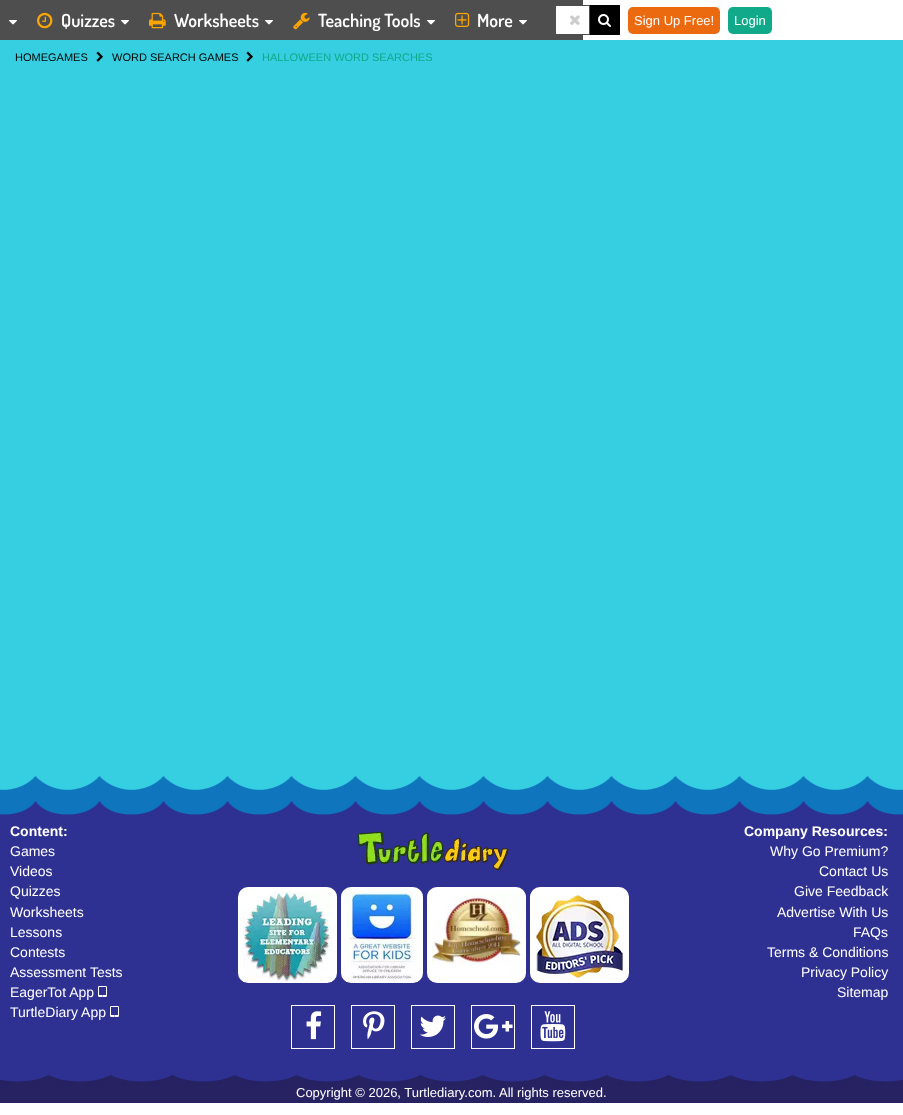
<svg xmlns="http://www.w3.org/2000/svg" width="903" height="1115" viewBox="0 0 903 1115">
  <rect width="100%" height="100%" fill="rgb(255,255,255)"/>
  <rect x="0" y="0" width="583" height="40" fill="rgb(78,78,78)"/>
  <image x="9" y="20" width="8" height="5" href="pic1.png"/>
  <image x="37" y="12" width="16" height="17" href="pic2.png"/>
  <text x="61" y="27" font-family="Dosis" font-size="18" font-weight="600" fill="rgb(255,255,255)">Quizzes</text>
  <image x="121" y="20" width="8" height="5" href="pic1.png"/>
  <image x="149" y="12" width="17" height="17" href="pic3.png"/>
  <text x="174" y="27" font-family="Dosis" font-size="18" font-weight="600" fill="rgb(255,255,255)">Worksheets</text>
  <image x="265" y="20" width="8" height="5" href="pic1.png"/>
  <image x="293" y="12" width="17" height="18" href="pic4.png"/>
  <text x="318" y="27" font-family="Dosis" font-size="18" font-weight="600" fill="rgb(255,255,255)">Teaching Tools</text>
  <image x="427" y="20" width="8" height="5" href="pic1.png"/>
  <image x="455" y="12" width="15" height="15" href="pic5.png"/>
  <text x="477" y="27" font-family="Dosis" font-size="18" font-weight="600" fill="rgb(255,255,255)">More</text>
  <image x="519" y="20" width="8" height="5" href="pic1.png"/>
  <rect x="556" y="6" width="27" height="28" fill="rgb(255,255,255)"/>
  <rect x="555.5" y="5.5" width="34" height="29" fill="none" stroke="rgb(78,78,78)"/>
  <image x="570" y="15" width="10" height="10" href="pic6.png"/>
  <rect x="590" y="5" width="30" height="30" fill="rgb(0,0,0)"/>
  <image x="598" y="14" width="13" height="13" href="pic7.png"/>
  <rect x="628" y="7" width="92" height="27" rx="5" fill="rgb(235,105,15)"/>
  <text x="634" y="25" font-family="Liberation Sans" font-size="13" fill="rgb(255,255,255)">Sign Up Free!</text>
  <rect x="728" y="7" width="44" height="27" rx="5" fill="rgb(16,169,138)"/>
  <text x="734" y="25" font-family="Liberation Sans" font-size="13" fill="rgb(255,255,255)">Login</text>
  <rect x="0" y="40" width="903" height="750" fill="rgb(53,207,225)"/>
  <text x="15" y="61" font-family="Liberation Sans" font-size="11" fill="rgb(0,0,0)">HOMEGAMES</text>
  <image x="96" y="51" width="7" height="11" href="pic8.png"/>
  <text x="112" y="61" font-family="Liberation Sans" font-size="11" fill="rgb(0,0,0)">WORD SEARCH GAMES</text>
  <image x="246" y="51" width="7" height="11" href="pic8.png"/>
  <text x="262" y="61" font-family="Liberation Sans" font-size="11" fill="rgb(16,169,138)">HALLOWEEN WORD SEARCHES</text>
  <rect x="0" y="801" width="903" height="274" fill="rgb(46,49,146)"/>
  <image x="0" y="1075" width="903" height="28" href="pic9.png"/>
  <image x="0" y="776" width="903" height="39" href="pic10.png"/>
  <text x="10" y="836" font-family="Liberation Sans" font-size="14" font-weight="bold" fill="rgb(255,255,255)">Content:</text>
  <g font-family="Liberation Sans" font-size="14" fill="rgb(255,255,255)">
    <text>
      <tspan x="10" y="856">Games</tspan>
      <tspan x="10" y="876">Videos</tspan>
      <tspan x="10" y="896">Quizzes</tspan>
      <tspan x="10" y="917">Worksheets</tspan>
      <tspan x="10" y="937">Lessons</tspan>
      <tspan x="10" y="957">Contests</tspan>
      <tspan x="10" y="977">Assessment Tests</tspan>
      <tspan x="10" y="997">EagerTot App</tspan>
    </text>
  </g>
  <image x="98" y="986" width="9" height="11" href="pic11.png"/>
  <text x="10" y="1017" font-family="Liberation Sans" font-size="14" fill="rgb(255,255,255)">TurtleDiary App</text>
  <image x="110" y="1006" width="9" height="11" href="pic11.png"/>
  <image x="358" y="831" width="151" height="39" href="pic12.png"/>
  <rect x="238" y="887" width="99" height="96" rx="10" fill="rgb(255,255,255)"/>
  <image x="243" y="892" width="89" height="90" href="pic13.png"/>
  <rect x="341" y="887" width="82" height="96" rx="10" fill="rgb(255,255,255)"/>
  <image x="346" y="892" width="72" height="90" href="pic14.png"/>
  <rect x="427" y="887" width="99" height="96" rx="10" fill="rgb(255,255,255)"/>
  <image x="432" y="892" width="89" height="73" href="pic15.png"/>
  <rect x="530" y="887" width="99" height="96" rx="10" fill="rgb(255,255,255)"/>
  <image x="536" y="895" width="87" height="83" href="pic16.png"/>
  <rect x="291.5" y="1005.5" width="43" height="43" fill="none" stroke="rgb(255,255,255)"/>
  <image x="306" y="1011" width="16" height="29" href="pic17.png"/>
  <rect x="351.5" y="1005.5" width="43" height="43" fill="none" stroke="rgb(255,255,255)"/>
  <image x="363" y="1011" width="22" height="29" href="pic18.png"/>
  <rect x="411.5" y="1005.5" width="43" height="43" fill="none" stroke="rgb(255,255,255)"/>
  <image x="420" y="1015" width="26" height="22" href="pic19.png"/>
  <rect x="471.5" y="1005.5" width="43" height="43" fill="none" stroke="rgb(255,255,255)"/>
  <image x="474" y="1014" width="39" height="25" href="pic20.png"/>
  <rect x="531.5" y="1005.5" width="43" height="43" fill="none" stroke="rgb(255,255,255)"/>
  <image x="540" y="1011" width="26" height="31" href="pic21.png"/>
  <text x="744" y="836" font-family="Liberation Sans" font-size="14" font-weight="bold" fill="rgb(255,255,255)">Company Resources:</text>
  <g font-family="Liberation Sans" font-size="14" fill="rgb(255,255,255)">
    <text x="770" y="856">Why Go Premium?</text>
    <text x="819" y="876">Contact Us</text>
    <text x="794" y="896">Give Feedback</text>
    <text x="777" y="917">Advertise With Us</text>
    <text x="853" y="937">FAQs</text>
    <text x="767" y="957">Terms &amp; Conditions</text>
    <text x="801" y="977">Privacy Policy</text>
    <text x="837" y="997">Sitemap</text>
  </g>
  <text x="296" y="1097" font-family="Liberation Sans" font-size="13" fill="rgb(255,255,255)">Copyright © 2026, Turtlediary.com. All rights reserved.</text>
</svg>
